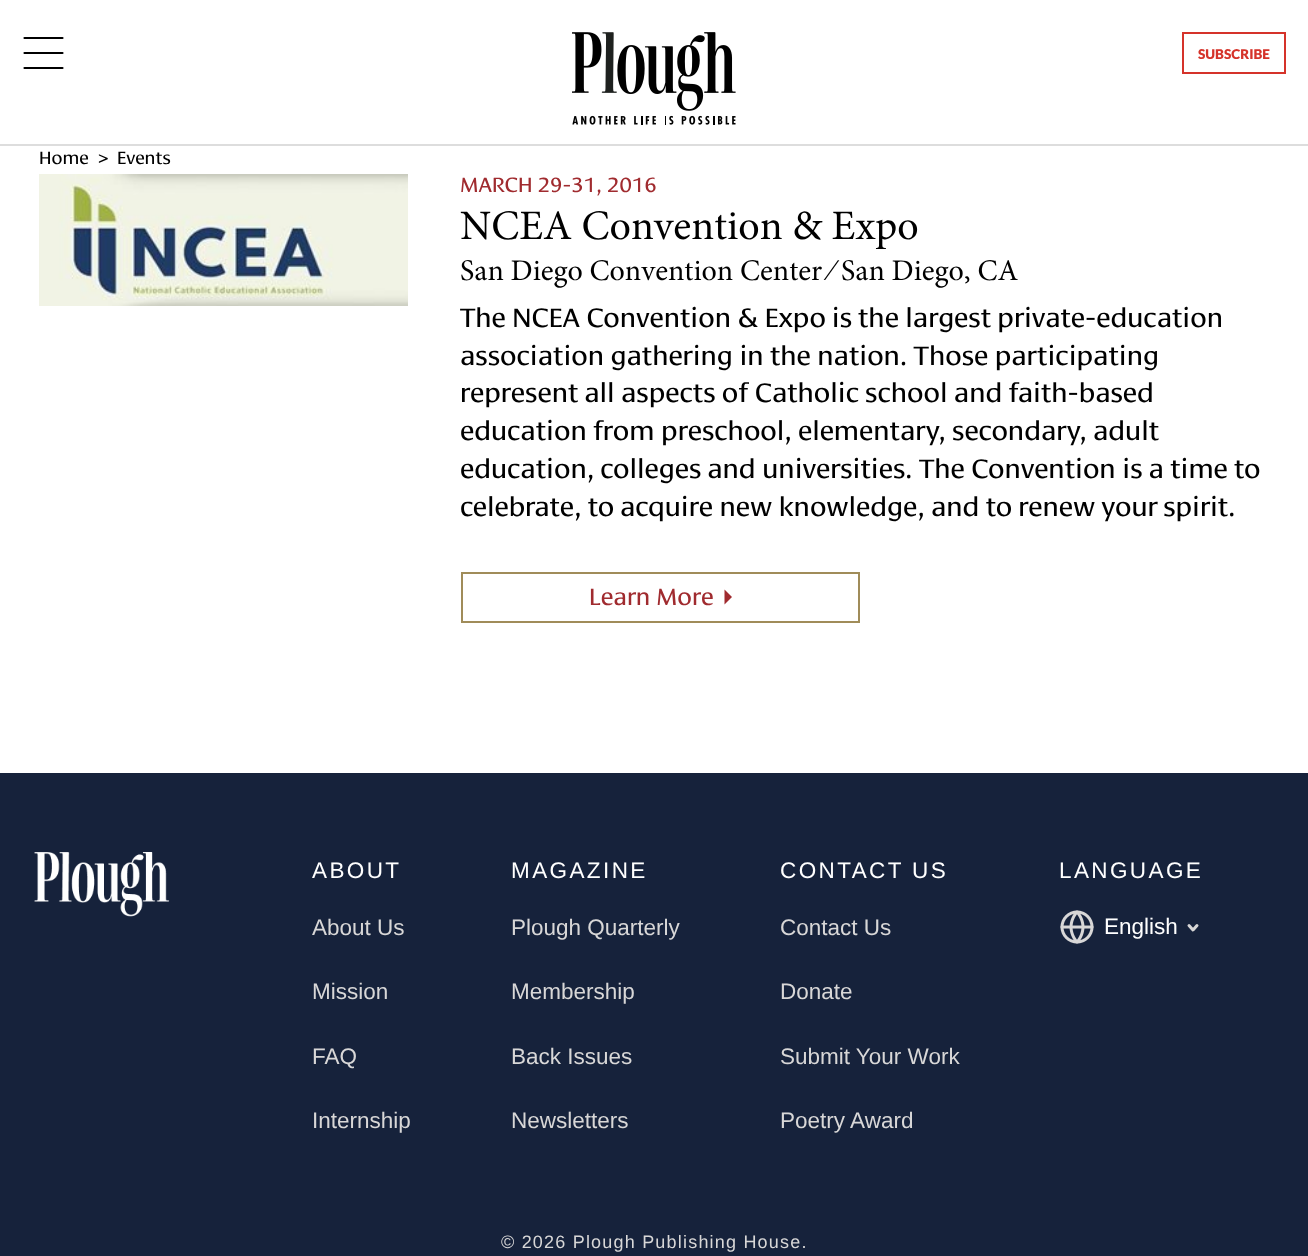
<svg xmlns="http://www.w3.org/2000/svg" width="1308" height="1256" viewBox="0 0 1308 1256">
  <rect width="100%" height="100%" fill="rgb(255,255,255)"/>
  <rect x="0" y="144" width="1308" height="2" fill="rgb(221,221,221)"/>
  <path d="M24.5 68H62.5M24.5 53H62.5M24.5 38H62.5" fill="none" stroke="rgb(0,0,0)" stroke-width="2.2" stroke-linecap="round" stroke-linejoin="round"/>
  <image x="572" y="32" width="164" height="93" href="pic1.png"/>
  <rect x="1183" y="33" width="102" height="40" fill="none" stroke="rgb(213,51,42)" stroke-width="2"/>
  <text x="1198" y="59" font-family="Lato" font-size="13.5" font-weight="900" fill="rgb(213,51,42)">SUBSCRIBE</text>
  <g font-family="'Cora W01'" font-size="18" fill="rgb(0,0,0)">
    <text x="39" y="164">Home</text>
    <text x="98" y="164">&gt;</text>
    <text x="117" y="164">Events</text>
  </g>
  <image x="39" y="174" width="369" height="132" href="pic2.png"/>
  <text x="460" y="192" font-family="'Cora W01'" font-size="21" fill="rgb(160,43,47)">MARCH 29-31, 2016</text>
  <text x="460" y="239" font-family="Minion" font-size="42" fill="rgb(0,0,0)">NCEA Convention &amp; Expo</text>
  <text x="460" y="280" font-family="Minion" font-size="30" fill="rgb(0,0,0)">San Diego Convention Center</text>
  <text x="829" y="280" font-family="Liberation Serif" font-size="30" fill="rgb(0,0,0)">⁄</text>
  <text x="841" y="280" font-family="Minion" font-size="30" fill="rgb(0,0,0)">San Diego, CA</text>
  <g font-family="'Cora W01'" font-size="27" fill="rgb(0,0,0)">
    <text>
      <tspan x="460" y="327">The NCEA Convention &amp; Expo is the largest private-education</tspan>
      <tspan x="460" y="365">association gathering in the nation. Those participating</tspan>
      <tspan x="460" y="402">represent all aspects of Catholic school and faith-based</tspan>
      <tspan x="460" y="440">education from preschool, elementary, secondary, adult</tspan>
      <tspan x="460" y="478">education, colleges and universities. The Convention is a time to</tspan>
      <tspan x="460" y="516">celebrate, to acquire new knowledge, and to renew your spirit.</tspan>
    </text>
  </g>
  <rect x="462" y="573" width="397" height="49" fill="none" stroke="rgb(160,140,89)" stroke-width="2"/>
  <text x="589" y="605" font-family="'Cora W01'" font-size="24" fill="rgb(160,43,47)">Learn More</text>
  <path d="M724.5 604.5V589.5L732 597Z" fill="rgb(160,43,47)"/>
  <rect x="0" y="773" width="1308" height="483" fill="rgb(22,34,59)"/>
  <image x="34" y="852" width="136" height="65" href="pic3.png"/>
  <text x="312" y="878" font-family="Liberation Sans" font-size="22.5" letter-spacing="2.4" fill="rgb(255,255,255)">ABOUT</text>
  <g font-family="Liberation Sans" font-size="22.5" fill="rgb(216,215,215)">
    <text x="312" y="935">About Us</text>
    <text x="312" y="999">Mission</text>
    <text x="312" y="1064">FAQ</text>
    <text x="312" y="1128">Internship</text>
  </g>
  <text x="511" y="878" font-family="Liberation Sans" font-size="22.5" letter-spacing="2.4" fill="rgb(255,255,255)">MAGAZINE</text>
  <g font-family="Liberation Sans" font-size="22.5" fill="rgb(216,215,215)">
    <text x="511" y="935">Plough Quarterly</text>
    <text x="511" y="999">Membership</text>
    <text x="511" y="1064">Back Issues</text>
    <text x="511" y="1128">Newsletters</text>
  </g>
  <text x="780" y="878" font-family="Liberation Sans" font-size="22.5" letter-spacing="2.4" fill="rgb(255,255,255)">CONTACT US</text>
  <g font-family="Liberation Sans" font-size="22.5" fill="rgb(216,215,215)">
    <text x="780" y="935">Contact Us</text>
    <text x="780" y="999">Donate</text>
    <text x="780" y="1064">Submit Your Work</text>
    <text x="780" y="1128">Poetry Award</text>
  </g>
  <text x="1059" y="878" font-family="Liberation Sans" font-size="22.5" letter-spacing="2.4" fill="rgb(255,255,255)">LANGUAGE</text>
  <image x="1060" y="910" width="34" height="34" href="pic4.png"/>
  <text x="1104" y="934" font-family="Liberation Sans" font-size="22.5" fill="rgb(255,255,255)">English</text>
  <path d="M1189 925.5L1193 930L1197 925.5" fill="none" stroke="rgb(216,215,215)" stroke-width="3" stroke-linecap="round" stroke-linejoin="round"/>
  <text x="501" y="1248" font-family="Liberation Sans" font-size="18" letter-spacing="1.2" fill="rgb(216,215,215)">© 2026 Plough Publishing House.</text>
</svg>
